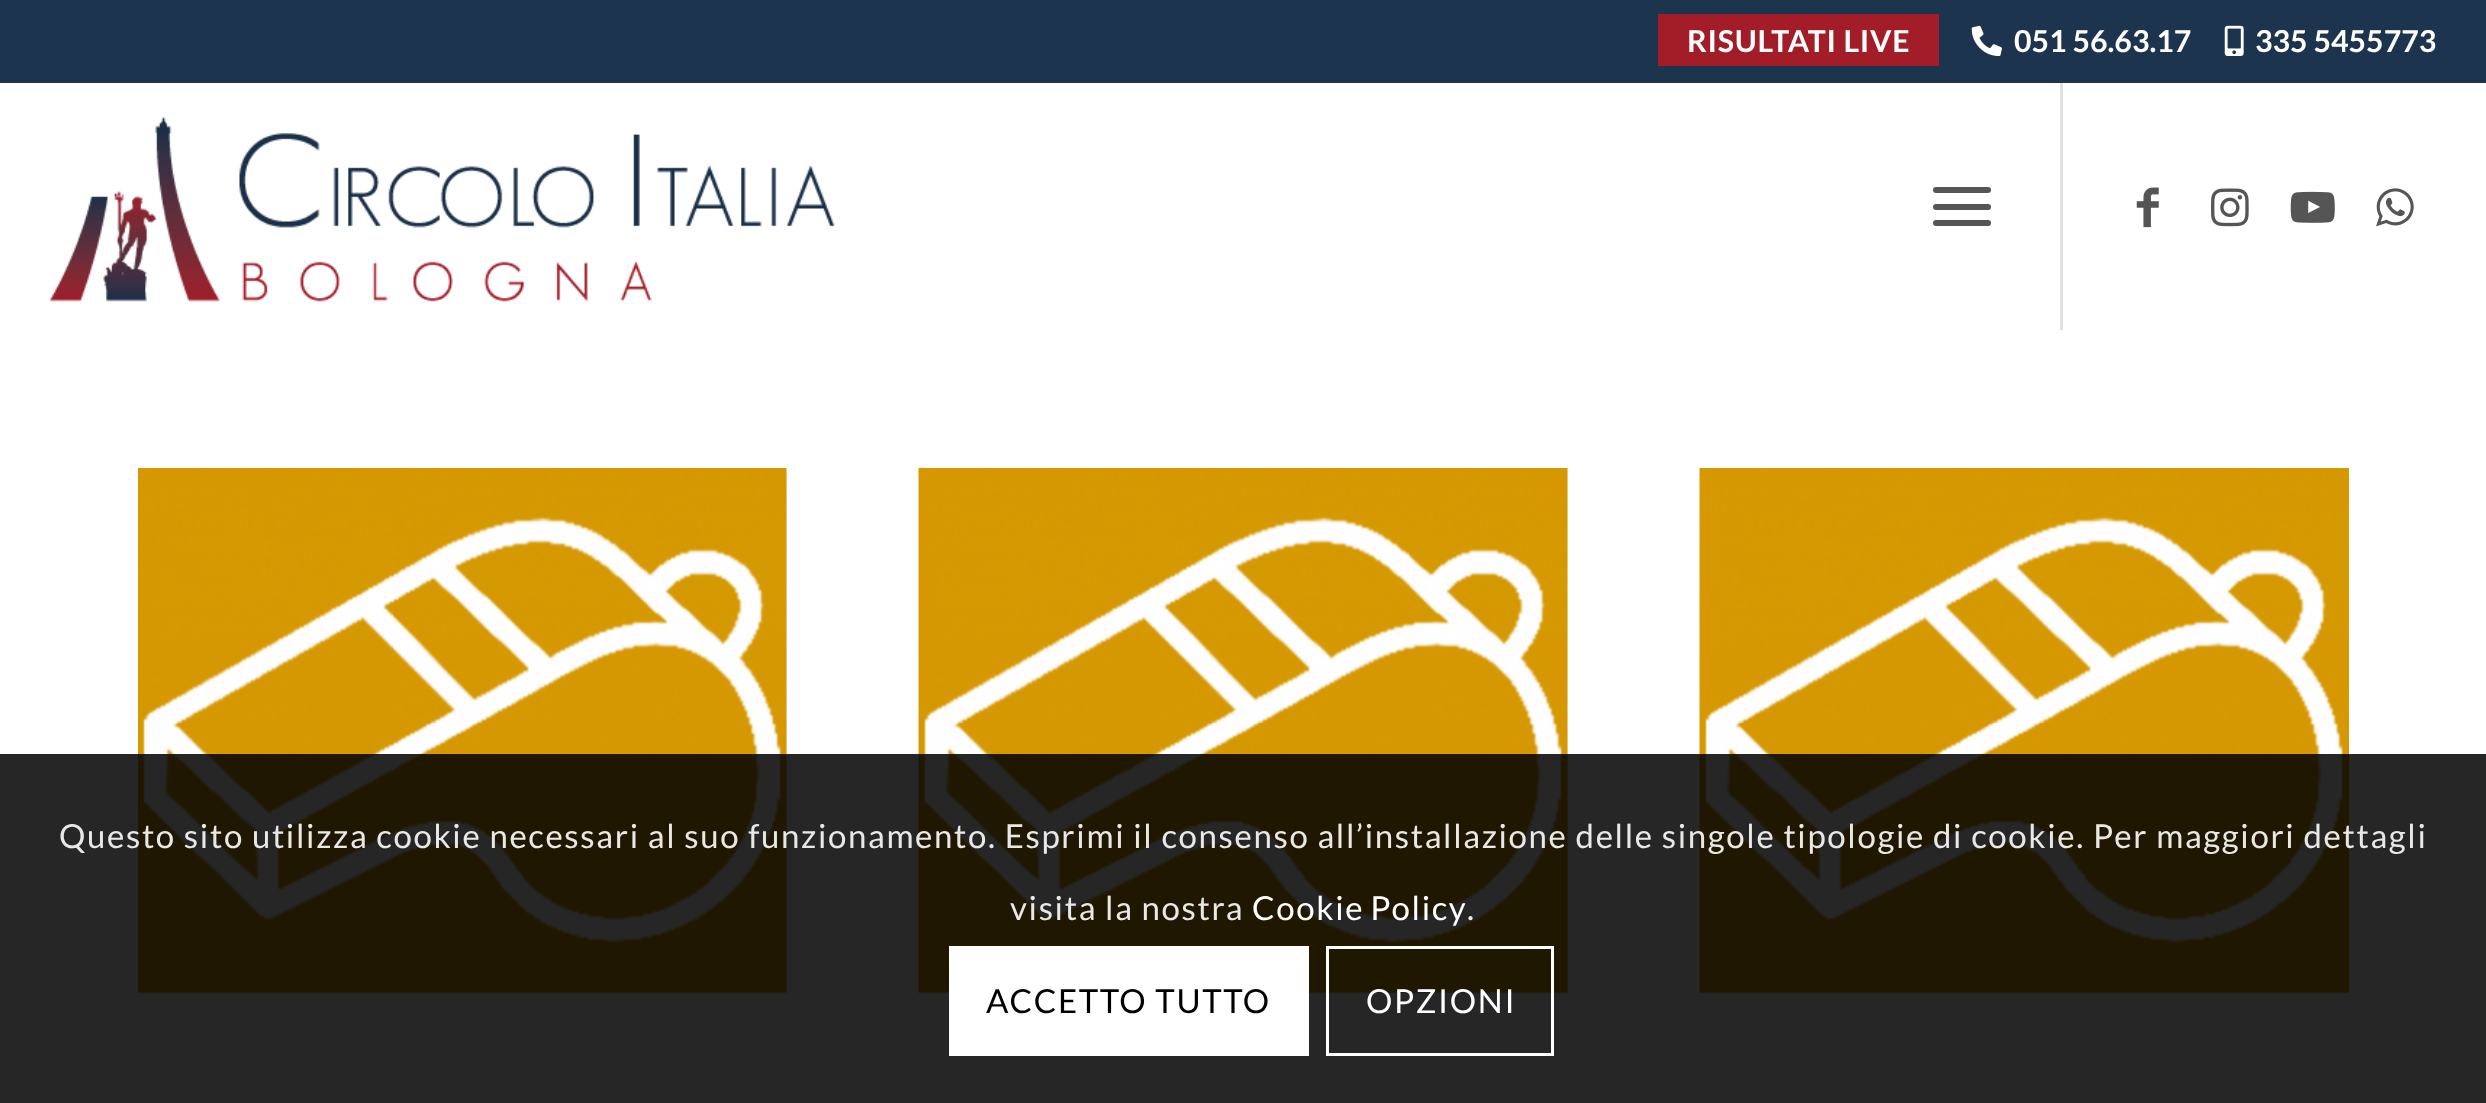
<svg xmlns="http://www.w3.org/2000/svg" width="2486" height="1103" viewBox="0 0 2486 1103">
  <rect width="100%" height="100%" fill="rgb(255,255,255)"/>
  <rect x="0" y="0" width="2486" height="83" fill="rgb(28,52,78)"/>
  <rect x="1658" y="14" width="281" height="52" fill="rgb(163,29,40)"/>
  <text x="1687" y="52" font-family="Lato" font-size="30.25" font-weight="bold" letter-spacing="0.75" fill="rgb(255,255,255)">RISULTATI LIVE</text>
  <image x="1971" y="25" width="31" height="31" href="pic1.png"/>
  <text x="2014" y="52" font-family="Lato" font-size="30.25" font-weight="bold" fill="rgb(255,255,255)">051 56.63.17</text>
  <image x="2224" y="25" width="20" height="31" href="pic2.png"/>
  <text x="2255" y="52" font-family="Lato" font-size="30.25" font-weight="bold" fill="rgb(255,255,255)">335 5455773</text>
  <image x="49" y="117" width="786" height="185" href="pic3.png"/>
  <rect x="2060" y="83" width="3" height="247" fill="rgb(225,225,225)"/>
  <rect x="1933" y="204" width="58" height="6" rx="3" fill="rgb(85,85,85)"/>
  <rect x="1933" y="187" width="58" height="6" rx="3" fill="rgb(85,85,85)"/>
  <rect x="1933" y="220" width="58" height="6" rx="3" fill="rgb(85,85,85)"/>
  <image x="2136" y="187" width="23" height="41" href="pic4.png"/>
  <image x="2211" y="188" width="38" height="39" href="pic5.png"/>
  <image x="2290" y="191" width="45" height="32" href="pic6.png"/>
  <image x="2376" y="188" width="38" height="39" href="pic7.png"/>
  <rect x="138" y="468" width="649" height="525" fill="rgb(244,244,244)"/>
  <image x="138" y="468" width="649" height="526" href="pic8.png"/>
  <rect x="919" y="468" width="649" height="525" fill="rgb(244,244,244)"/>
  <image x="918" y="468" width="650" height="526" href="pic9.png"/>
  <rect x="1700" y="992" width="649" height="1" fill="rgb(244,244,244)"/>
  <image x="1699" y="468" width="650" height="526" href="pic10.png"/>
  <rect x="0" y="754" width="2486" height="349" fill="rgba(0,0,0,0.85)"/>
  <g font-family="Lato" font-size="33" letter-spacing="1.65" fill="rgb(233,232,231)">
    <text x="59" y="848">Questo sito utilizza cookie necessari al suo funzionamento. Esprimi il consenso all’installazione delle singole tipologie di cookie. Per maggiori dettagli</text>
    <text x="1010" y="920">visita la nostra</text>
  </g>
  <text x="1252" y="920" word-spacing="-2" font-family="Lato" font-size="33" letter-spacing="1.65" fill="rgb(255,255,255)">Cookie Policy</text>
  <text x="1467" y="920" font-family="Lato" font-size="33" letter-spacing="1.65" fill="rgb(233,232,231)">.</text>
  <rect x="949" y="946" width="360" height="110" fill="rgb(255,255,255)"/>
  <text x="986" y="1013" font-family="Lato" font-size="33" letter-spacing="1.65" fill="rgb(0,0,0)">ACCETTO TUTTO</text>
  <rect x="1327.5" y="947.5" width="225" height="107" fill="none" stroke="rgb(255,255,255)" stroke-width="3"/>
  <text x="1366" y="1013" font-family="Lato" font-size="33" letter-spacing="1.65" fill="rgb(255,255,255)">OPZIONI</text>
</svg>
